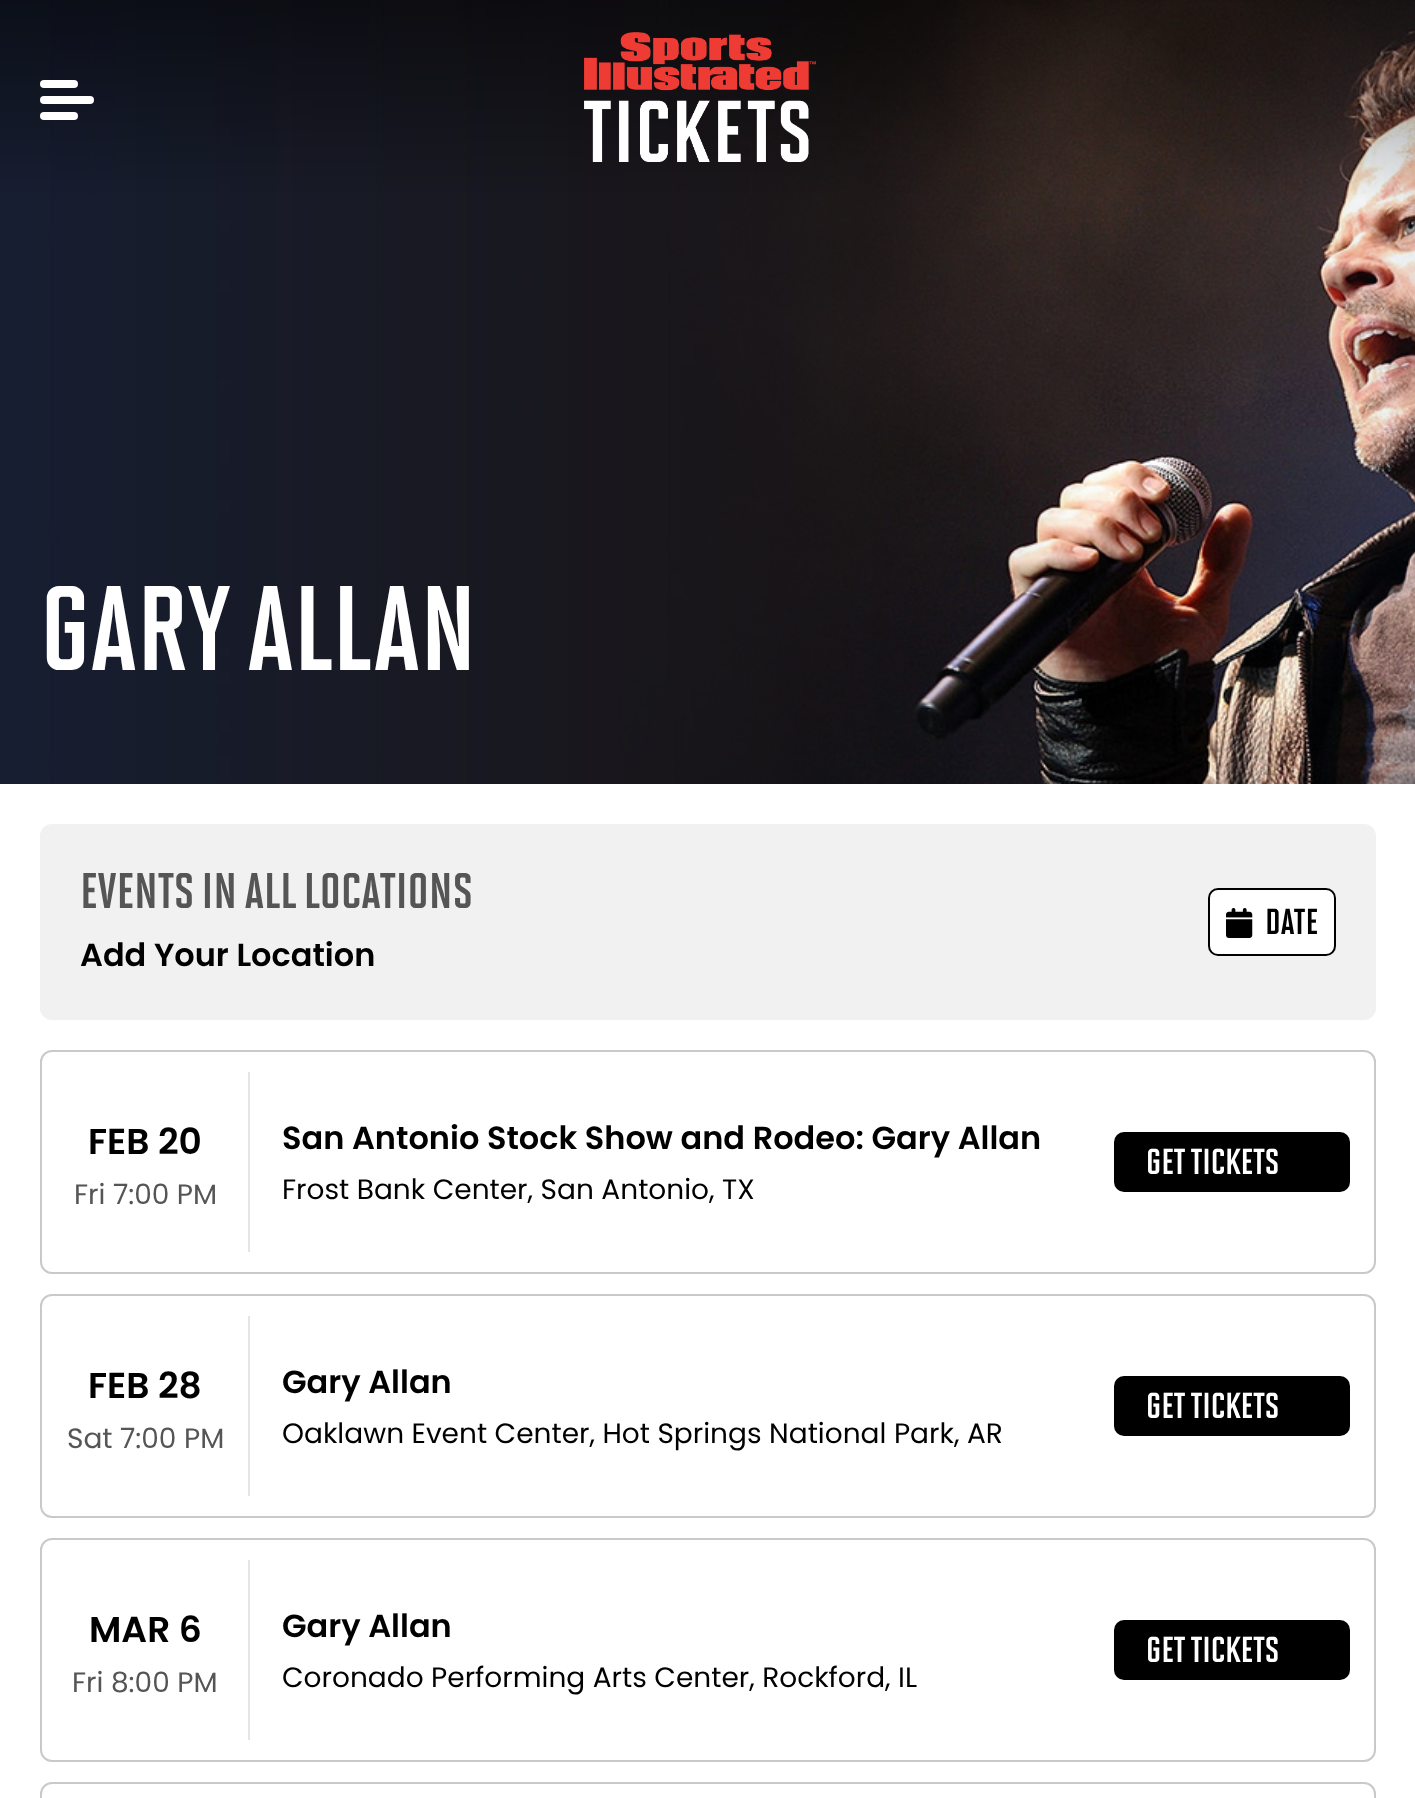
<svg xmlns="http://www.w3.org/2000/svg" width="1415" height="1798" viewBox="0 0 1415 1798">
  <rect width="100%" height="100%" fill="rgb(255,255,255)"/>
  <image x="0" y="0" width="1415" height="784" href="pic2.png"/>
  <rect x="40" y="80" width="38" height="8" rx="4" fill="rgb(255,255,255)"/>
  <rect x="40" y="96" width="54" height="8" rx="4" fill="rgb(255,255,255)"/>
  <rect x="40" y="112" width="38" height="8" rx="4" fill="rgb(255,255,255)"/>
  <image x="584" y="32" width="233" height="130" href="pic1.png"/>
  <text x="40" y="670" font-family="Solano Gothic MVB" font-size="120" font-weight="bold" fill="rgb(255,255,255)">GARY ALLAN</text>
  <rect x="40" y="824" width="1336" height="196" rx="12" fill="rgb(241,241,241)"/>
  <text x="80" y="908" font-family="Solano Gothic MVB" font-size="50" font-weight="bold" fill="rgb(85,85,85)">EVENTS IN ALL LOCATIONS</text>
  <text x="80" y="966" font-family="Poppins" font-size="32" font-weight="600" fill="rgb(0,0,0)">Add Your Location</text>
  <rect x="1209" y="889" width="126" height="66" rx="9" fill="rgb(255,255,255)" stroke="rgb(0,0,0)" stroke-width="2"/>
  <image x="1226" y="908" width="27" height="30" href="pic3.png"/>
  <text x="1265" y="934" font-family="Solano Gothic MVB" font-size="36" font-weight="bold" fill="rgb(0,0,0)">DATE</text>
  <rect x="41" y="1051" width="1334" height="222" rx="11" fill="none" stroke="rgb(201,201,201)" stroke-width="2"/>
  <text x="88" y="1154" font-family="Poppins" font-size="36" font-weight="600" fill="rgb(0,0,0)">FEB 20</text>
  <text x="74" y="1204" font-family="Poppins" font-size="28" fill="rgb(85,85,85)">Fri 7:00 PM</text>
  <rect x="248" y="1072" width="2" height="180" fill="rgb(229,229,229)"/>
  <text x="282" y="1149" font-family="Poppins" font-size="32" font-weight="600" fill="rgb(0,0,0)">San Antonio Stock Show and Rodeo: Gary Allan</text>
  <text x="282" y="1199" font-family="Poppins" font-size="28" fill="rgb(0,0,0)">Frost Bank Center, San Antonio, TX</text>
  <rect x="1114" y="1132" width="236" height="60" rx="10" fill="rgb(0,0,0)"/>
  <text x="1146" y="1174" font-family="Solano Gothic MVB" font-size="36" font-weight="bold" fill="rgb(255,255,255)">GET TICKETS</text>
  <rect x="41" y="1295" width="1334" height="222" rx="11" fill="none" stroke="rgb(201,201,201)" stroke-width="2"/>
  <text x="88" y="1398" font-family="Poppins" font-size="36" font-weight="600" fill="rgb(0,0,0)">FEB 28</text>
  <text x="67" y="1448" font-family="Poppins" font-size="28" fill="rgb(85,85,85)">Sat 7:00 PM</text>
  <rect x="248" y="1316" width="2" height="180" fill="rgb(229,229,229)"/>
  <text x="282" y="1393" font-family="Poppins" font-size="32" font-weight="600" fill="rgb(0,0,0)">Gary Allan</text>
  <text x="282" y="1443" font-family="Poppins" font-size="28" fill="rgb(0,0,0)">Oaklawn Event Center, Hot Springs National Park, AR</text>
  <rect x="1114" y="1376" width="236" height="60" rx="10" fill="rgb(0,0,0)"/>
  <text x="1146" y="1418" font-family="Solano Gothic MVB" font-size="36" font-weight="bold" fill="rgb(255,255,255)">GET TICKETS</text>
  <rect x="41" y="1539" width="1334" height="222" rx="11" fill="none" stroke="rgb(201,201,201)" stroke-width="2"/>
  <text x="89" y="1642" font-family="Poppins" font-size="36" font-weight="600" fill="rgb(0,0,0)">MAR 6</text>
  <text x="72" y="1692" font-family="Poppins" font-size="28" fill="rgb(85,85,85)">Fri 8:00 PM</text>
  <rect x="248" y="1560" width="2" height="180" fill="rgb(229,229,229)"/>
  <text x="282" y="1637" font-family="Poppins" font-size="32" font-weight="600" fill="rgb(0,0,0)">Gary Allan</text>
  <text x="282" y="1687" font-family="Poppins" font-size="28" fill="rgb(0,0,0)">Coronado Performing Arts Center, Rockford, IL</text>
  <rect x="1114" y="1620" width="236" height="60" rx="10" fill="rgb(0,0,0)"/>
  <text x="1146" y="1662" font-family="Solano Gothic MVB" font-size="36" font-weight="bold" fill="rgb(255,255,255)">GET TICKETS</text>
  <rect x="41" y="1783" width="1334" height="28" rx="11" fill="none" stroke="rgb(201,201,201)" stroke-width="2"/>
</svg>
